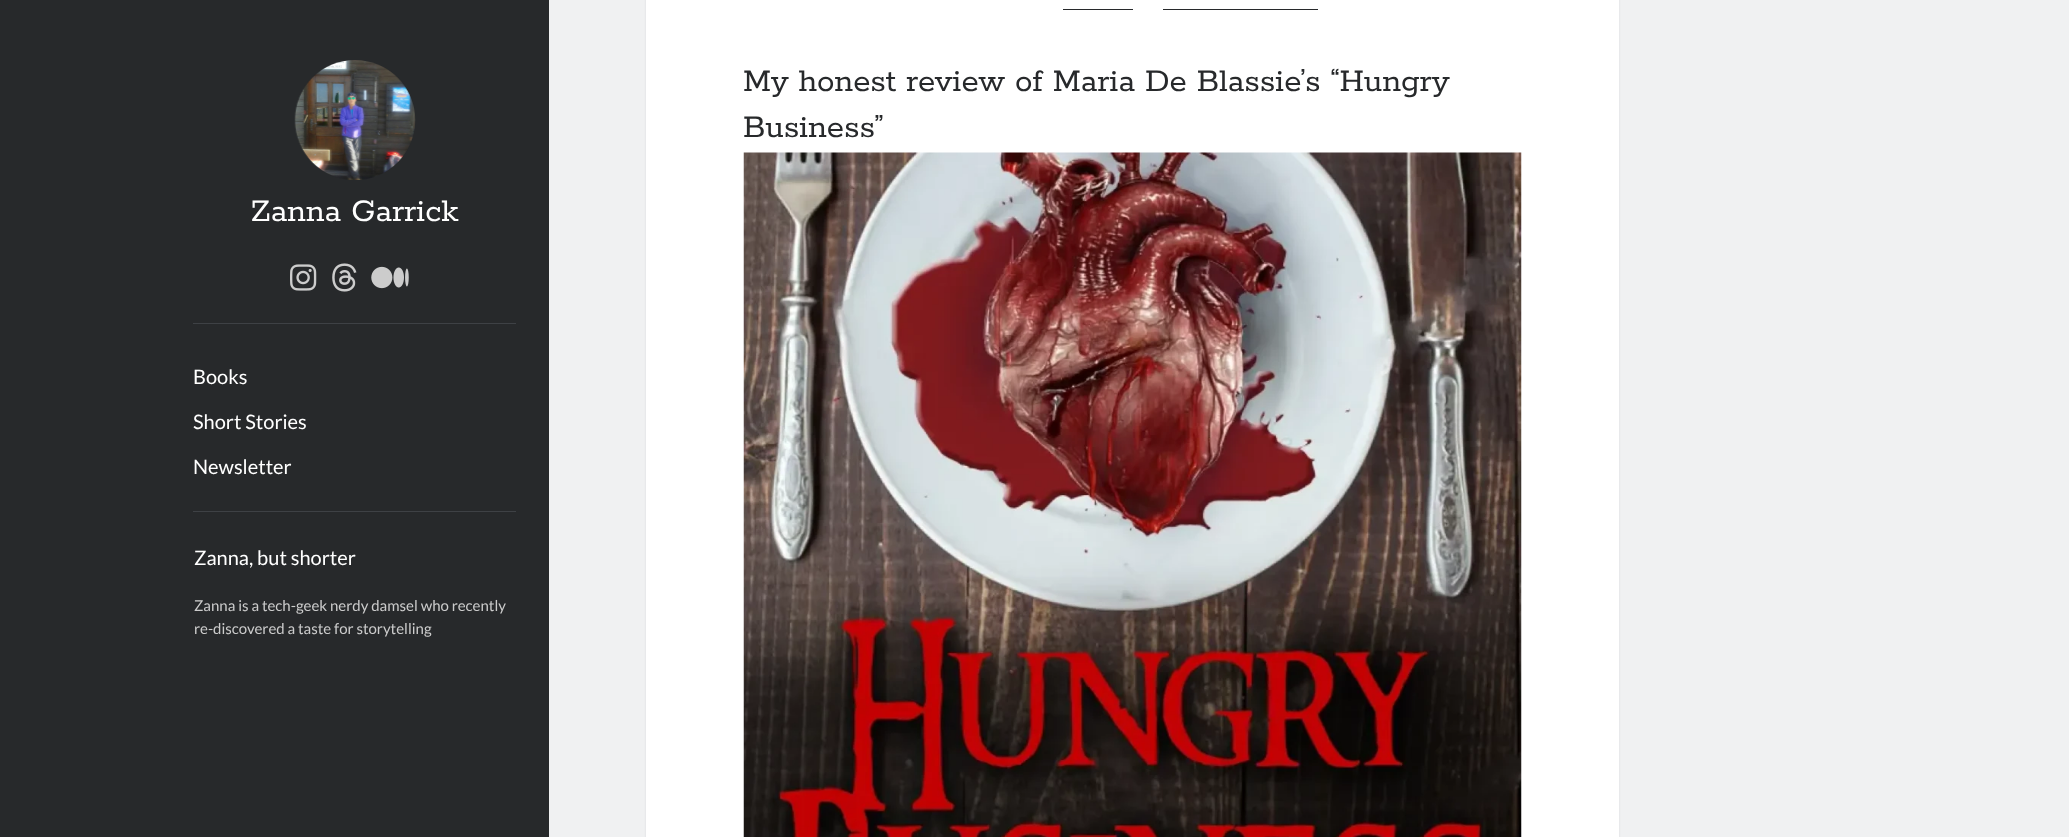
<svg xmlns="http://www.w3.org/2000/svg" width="2069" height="837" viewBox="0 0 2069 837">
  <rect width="100%" height="100%" fill="rgb(39,41,43)"/>
  <rect x="549" y="0" width="1520" height="837" fill="rgb(240,241,242)"/>
  <rect x="646" y="-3" width="973" height="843" fill="rgba(39,43,47,0.1)" filter="blur(1px)"/>
  <rect x="646" y="0" width="973" height="837" fill="rgb(255,255,255)"/>
  <rect x="1063" y="9" width="70" height="1" fill="rgb(39,41,43)"/>
  <rect x="1163" y="9" width="155" height="1" fill="rgb(39,41,43)"/>
  <g font-family="Rokkitt" font-size="35" fill="rgb(39,41,43)">
    <text>
      <tspan x="743" y="91">My honest review of Maria De Blassie’s “Hungry</tspan>
      <tspan x="743" y="137">Business”</tspan>
    </text>
  </g>
  <image x="743" y="152" width="779" height="685" href="pic1.png"/>
  <image x="294" y="60" width="122" height="120" href="pic2.png"/>
  <text x="250" y="221" font-family="Rokkitt" font-size="35" fill="rgb(255,255,255)">Zanna Garrick</text>
  <image x="290" y="264" width="27" height="27" href="pic3.png"/>
  <image x="332" y="263" width="25" height="29" href="pic4.png"/>
  <image x="371" y="266" width="38" height="23" href="pic5.png"/>
  <rect x="193" y="323" width="323" height="1" fill="rgb(62,65,69)"/>
  <g font-family="Lato" font-size="20" fill="rgb(255,255,255)">
    <text x="193" y="384">Books</text>
    <text x="193" y="429">Short Stories</text>
    <text x="193" y="474">Newsletter</text>
  </g>
  <rect x="193" y="511" width="323" height="1" fill="rgb(62,65,69)"/>
  <text x="194" y="565" font-family="Lato" font-size="20" fill="rgb(255,255,255)">Zanna, but shorter</text>
  <g font-family="Lato" font-size="15" fill="rgb(204,204,204)">
    <text>
      <tspan x="194" y="611">Zanna is a tech-geek nerdy damsel who recently</tspan>
      <tspan x="194" y="634">re-discovered a taste for storytelling</tspan>
    </text>
  </g>
</svg>
